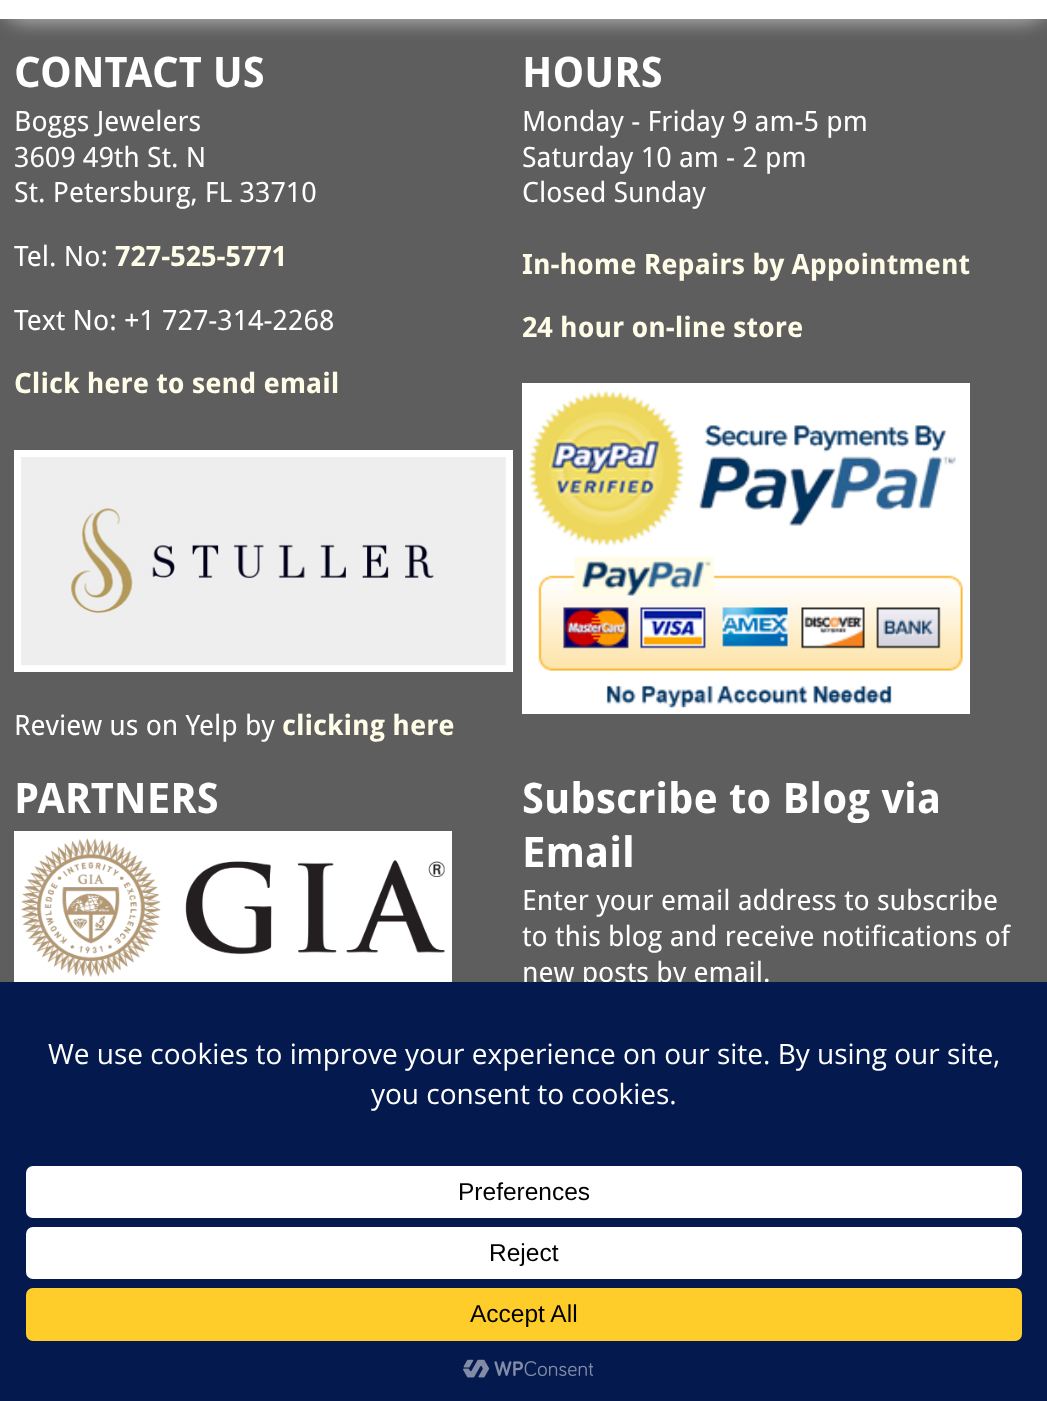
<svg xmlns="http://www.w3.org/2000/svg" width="1047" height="1401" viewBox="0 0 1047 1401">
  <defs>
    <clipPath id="clip1"><rect x="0" y="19" width="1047" height="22"/></clipPath>
  </defs>
  <rect width="100%" height="100%" fill="rgb(255,255,255)"/>
  <rect x="0" y="19" width="1047" height="963" fill="rgb(94,94,94)"/>
  <g clip-path="url(#clip1)">
    <rect x="-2" y="-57" width="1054" height="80" rx="30" fill="rgb(172,172,172)" filter="blur(9px)"/>
  </g>
  <text x="14" y="87" font-family="Droid Sans" font-size="42" font-weight="bold" fill="rgb(255,255,255)">CONTACT US</text>
  <g font-family="Droid Sans" font-size="28" fill="rgb(255,255,255)">
    <text>
      <tspan x="14" y="131">Boggs Jewelers</tspan>
      <tspan x="14" y="167">3609 49th St. N</tspan>
      <tspan x="14" y="202">St. Petersburg, FL 33710</tspan>
    </text>
    <text x="14" y="266">Tel. No:</text>
  </g>
  <text x="115" y="266" font-family="Droid Sans" font-size="28" font-weight="bold" fill="rgb(255,253,232)">727-525-5771</text>
  <text x="14" y="330" font-family="Droid Sans" font-size="28" fill="rgb(255,255,255)">Text No: +1 727-314-2268</text>
  <text x="14" y="393" font-family="Droid Sans" font-size="28" font-weight="bold" fill="rgb(255,253,232)">Click here to send email</text>
  <rect x="14" y="450" width="499" height="222" fill="rgb(255,255,255)"/>
  <image x="21" y="457" width="485" height="209" href="pic1.png"/>
  <text x="14" y="735" font-family="Droid Sans" font-size="28" fill="rgb(255,255,255)">Review us on Yelp by</text>
  <text x="282" y="735" font-family="Droid Sans" font-size="28" font-weight="bold" fill="rgb(255,253,232)">clicking here</text>
  <text x="522" y="87" font-family="Droid Sans" font-size="42" font-weight="bold" fill="rgb(255,255,255)">HOURS</text>
  <g font-family="Droid Sans" font-size="28" fill="rgb(255,255,255)">
    <text>
      <tspan x="522" y="131">Monday - Friday 9 am-5 pm</tspan>
      <tspan x="522" y="167">Saturday 10 am - 2 pm</tspan>
      <tspan x="522" y="202">Closed Sunday</tspan>
    </text>
  </g>
  <g font-family="Droid Sans" font-size="28" font-weight="bold" fill="rgb(255,253,232)">
    <text x="522" y="274">In-home Repairs by Appointment</text>
    <text x="522" y="337">24 hour on-line store</text>
  </g>
  <rect x="522" y="383" width="448" height="331" fill="rgb(255,255,255)"/>
  <image x="528" y="390" width="435" height="318" href="pic2.png"/>
  <text x="14" y="813" font-family="Droid Sans" font-size="42" font-weight="bold" fill="rgb(255,255,255)">PARTNERS</text>
  <rect x="14" y="831" width="438" height="151" fill="rgb(255,255,255)"/>
  <image x="21" y="838" width="424" height="139" href="pic3.png"/>
  <g font-family="Droid Sans" font-size="42" font-weight="bold" fill="rgb(255,255,255)">
    <text>
      <tspan x="522" y="813">Subscribe to Blog via</tspan>
      <tspan x="522" y="867">Email</tspan>
    </text>
  </g>
  <g font-family="Droid Sans" font-size="28" fill="rgb(255,255,255)">
    <text>
      <tspan x="522" y="910">Enter your email address to subscribe</tspan>
      <tspan x="522" y="946">to this blog and receive notifications of</tspan>
      <tspan x="522" y="982">new posts by email.</tspan>
    </text>
  </g>
  <rect x="0" y="982" width="1047" height="419" fill="rgb(4,25,78)"/>
  <g font-family="Open Sans" font-size="28" fill="rgb(255,255,255)">
    <text x="48" y="1064">We use cookies to improve your experience on our site. By using our site,</text>
    <text x="371" y="1104">you consent to cookies.</text>
  </g>
  <rect x="26" y="1166" width="996" height="52" rx="7" fill="rgb(255,255,255)"/>
  <text x="458" y="1200" font-family="Liberation Sans" font-size="24.5" fill="rgb(0,0,0)">Preferences</text>
  <rect x="26" y="1227" width="996" height="52" rx="7" fill="rgb(255,255,255)"/>
  <text x="489" y="1261" font-family="Liberation Sans" font-size="24.5" fill="rgb(0,0,0)">Reject</text>
  <rect x="26" y="1288" width="996" height="53" rx="7" fill="rgb(255,205,42)"/>
  <text x="470" y="1322" font-family="Liberation Sans" font-size="24.5" fill="rgb(0,0,0)">Accept All</text>
  <image x="463" y="1359" width="131" height="19" href="pic4.png"/>
</svg>
